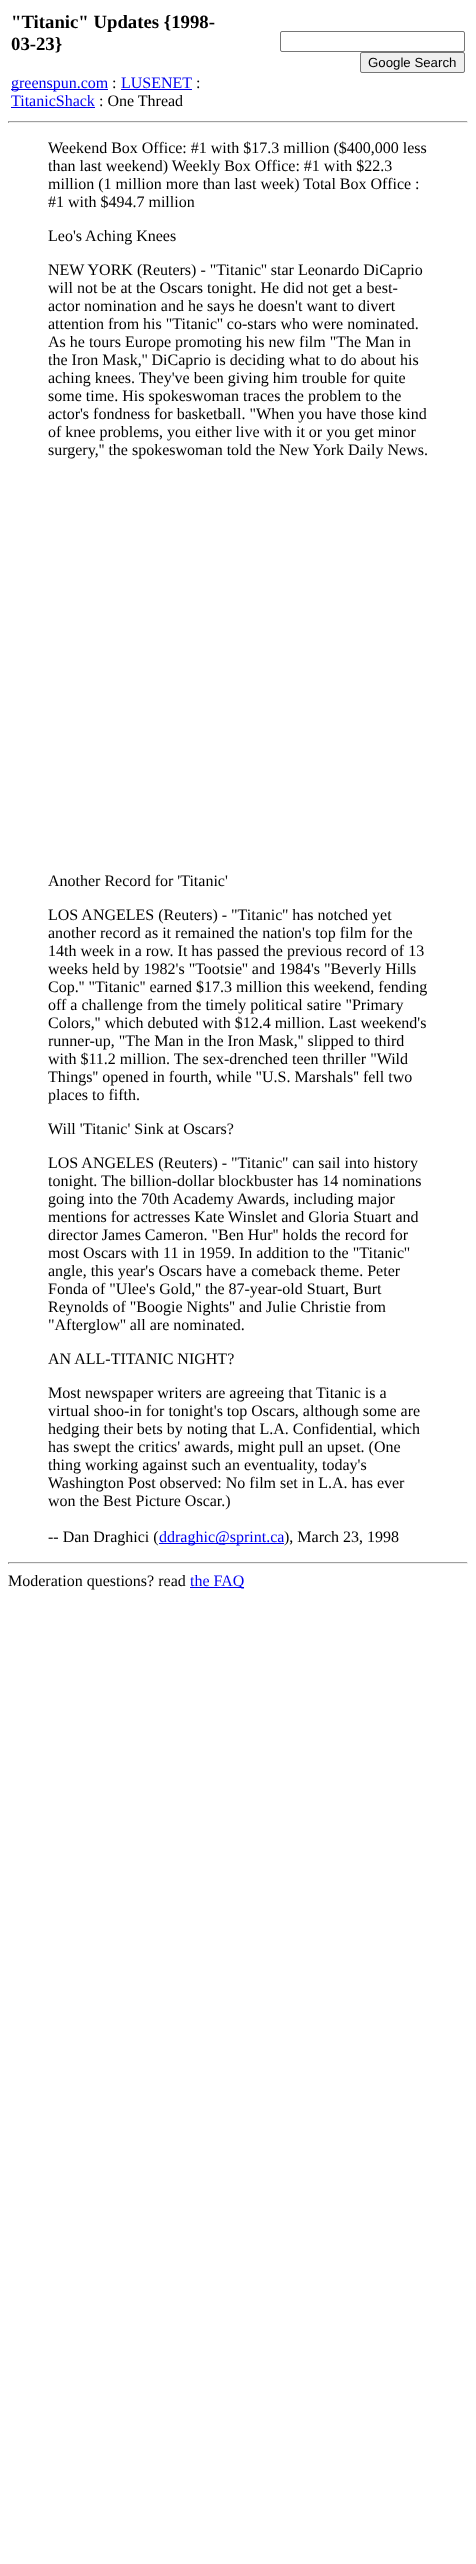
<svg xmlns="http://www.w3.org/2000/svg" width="476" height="2564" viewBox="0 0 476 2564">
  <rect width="100%" height="100%" fill="rgb(255,255,255)"/>
  <g font-family="Liberation Serif" font-size="18.75" font-weight="bold" fill="rgb(0,0,0)">
    <text>
      <tspan x="11" y="28">"Titanic" Updates {1998-</tspan>
      <tspan x="11" y="50">03-23}</tspan>
    </text>
  </g>
  <rect x="11" y="89" width="97" height="1" fill="rgb(0,0,238)"/>
  <text x="11" y="88" font-family="Liberation Serif" font-size="16" fill="rgb(0,0,238)">greenspun.com</text>
  <text x="112" y="88" font-family="Liberation Serif" font-size="16" fill="rgb(0,0,0)">:</text>
  <text x="121" y="88" font-family="Liberation Serif" font-size="16" fill="rgb(0,0,238)">LUSENET</text>
  <rect x="121" y="89" width="71" height="1" fill="rgb(0,0,238)"/>
  <text x="196" y="88" font-family="Liberation Serif" font-size="16" fill="rgb(0,0,0)">:</text>
  <text x="11" y="106" font-family="Liberation Serif" font-size="16" fill="rgb(0,0,238)">TitanicShack</text>
  <rect x="11" y="107" width="84" height="1" fill="rgb(0,0,238)"/>
  <text x="99" y="106" font-family="Liberation Serif" font-size="16" fill="rgb(0,0,0)">: One Thread</text>
  <rect x="280.5" y="31.5" width="184" height="20" rx="1.5" fill="none" stroke="rgb(118,118,118)"/>
  <rect x="360.5" y="52.5" width="104" height="20" rx="1.5" fill="rgb(239,239,239)" stroke="rgb(118,118,118)"/>
  <text x="368" y="67" font-family="Liberation Sans" font-size="13.25" fill="rgb(0,0,0)">Google Search</text>
  <rect x="8" y="121" width="460" height="1" fill="rgb(159,159,159)"/>
  <rect x="467" y="121" width="1" height="2" fill="rgb(238,238,238)"/>
  <rect x="8" y="122" width="460" height="1" fill="rgb(238,238,238)"/>
  <rect x="8" y="121" width="1" height="2" fill="rgb(159,159,159)"/>
  <g font-family="Liberation Serif" font-size="16" fill="rgb(0,0,0)">
    <text>
      <tspan x="48" y="153">Weekend Box Office: #1 with $17.3 million ($400,000 less</tspan>
      <tspan x="48" y="171">than last weekend) Weekly Box Office: #1 with $22.3</tspan>
      <tspan x="48" y="189">million (1 million more than last week) Total Box Office :</tspan>
      <tspan x="48" y="207">#1 with $494.7 million</tspan>
    </text>
    <text x="48" y="241">Leo's Aching Knees</text>
    <text>
      <tspan x="48" y="275">NEW YORK (Reuters) - "Titanic'' star Leonardo DiCaprio</tspan>
      <tspan x="48" y="293">will not be at the Oscars tonight. He did not get a best-</tspan>
      <tspan x="48" y="311">actor nomination and he says he doesn't want to divert</tspan>
      <tspan x="48" y="329">attention from his "Titanic'' co-stars who were nominated.</tspan>
      <tspan x="48" y="347">As he tours Europe promoting his new film "The Man in</tspan>
      <tspan x="48" y="365">the Iron Mask,'' DiCaprio is deciding what to do about his</tspan>
      <tspan x="48" y="383">aching knees. They've been giving him trouble for quite</tspan>
      <tspan x="48" y="401">some time. His spokeswoman traces the problem to the</tspan>
      <tspan x="48" y="419">actor's fondness for basketball. "When you have those kind</tspan>
      <tspan x="48" y="437">of knee problems, you either live with it or you get minor</tspan>
      <tspan x="48" y="455">surgery,'' the spokeswoman told the New York Daily News.</tspan>
    </text>
    <text x="48" y="886">Another Record for 'Titanic'</text>
    <text>
      <tspan x="48" y="920">LOS ANGELES (Reuters) - "Titanic'' has notched yet</tspan>
      <tspan x="48" y="938">another record as it remained the nation's top film for the</tspan>
      <tspan x="48" y="956">14th week in a row. It has passed the previous record of 13</tspan>
      <tspan x="48" y="974">weeks held by 1982's "Tootsie'' and 1984's "Beverly Hills</tspan>
      <tspan x="48" y="992">Cop.'' "Titanic'' earned $17.3 million this weekend, fending</tspan>
      <tspan x="48" y="1010">off a challenge from the timely political satire "Primary</tspan>
      <tspan x="48" y="1028">Colors,'' which debuted with $12.4 million. Last weekend's</tspan>
      <tspan x="48" y="1046">runner-up, "The Man in the Iron Mask,'' slipped to third</tspan>
      <tspan x="48" y="1064">with $11.2 million. The sex-drenched teen thriller "Wild</tspan>
      <tspan x="48" y="1082">Things'' opened in fourth, while "U.S. Marshals'' fell two</tspan>
      <tspan x="48" y="1100">places to fifth.</tspan>
    </text>
    <text x="48" y="1134">Will 'Titanic' Sink at Oscars?</text>
    <text>
      <tspan x="48" y="1168">LOS ANGELES (Reuters) - "Titanic'' can sail into history</tspan>
      <tspan x="48" y="1186">tonight. The billion-dollar blockbuster has 14 nominations</tspan>
      <tspan x="48" y="1204">going into the 70th Academy Awards, including major</tspan>
      <tspan x="48" y="1222">mentions for actresses Kate Winslet and Gloria Stuart and</tspan>
      <tspan x="48" y="1240">director James Cameron. "Ben Hur'' holds the record for</tspan>
      <tspan x="48" y="1258">most Oscars with 11 in 1959. In addition to the "Titanic''</tspan>
      <tspan x="48" y="1276">angle, this year's Oscars have a comeback theme. Peter</tspan>
      <tspan x="48" y="1294">Fonda of "Ulee's Gold,'' the 87-year-old Stuart, Burt</tspan>
      <tspan x="48" y="1312">Reynolds of "Boogie Nights'' and Julie Christie from</tspan>
      <tspan x="48" y="1330">"Afterglow'' all are nominated.</tspan>
    </text>
    <text x="48" y="1364">AN ALL-TITANIC NIGHT?</text>
    <text>
      <tspan x="48" y="1398">Most newspaper writers are agreeing that Titanic is a</tspan>
      <tspan x="48" y="1416">virtual shoo-in for tonight's top Oscars, although some are</tspan>
      <tspan x="48" y="1434">hedging their bets by noting that L.A. Confidential, which</tspan>
      <tspan x="48" y="1452">has swept the critics' awards, might pull an upset. (One</tspan>
      <tspan x="48" y="1470">thing working against such an eventuality, today's</tspan>
      <tspan x="48" y="1488">Washington Post observed: No film set in L.A. has ever</tspan>
      <tspan x="48" y="1506">won the Best Picture Oscar.)</tspan>
    </text>
    <text x="48" y="1542">-- Dan Draghici (</text>
  </g>
  <rect x="159" y="1543" width="125" height="1" fill="rgb(0,0,238)"/>
  <text x="159" y="1542" font-family="Liberation Serif" font-size="16" fill="rgb(0,0,238)">ddraghic@sprint.ca</text>
  <text x="284" y="1542" font-family="Liberation Serif" font-size="16" fill="rgb(0,0,0)">), March 23, 1998</text>
  <rect x="8" y="1562" width="460" height="1" fill="rgb(159,159,159)"/>
  <rect x="467" y="1562" width="1" height="2" fill="rgb(238,238,238)"/>
  <rect x="8" y="1563" width="460" height="1" fill="rgb(238,238,238)"/>
  <rect x="8" y="1562" width="1" height="2" fill="rgb(159,159,159)"/>
  <text x="8" y="1586" font-family="Liberation Serif" font-size="16" fill="rgb(0,0,0)">Moderation questions? read</text>
  <rect x="190" y="1587" width="54" height="1" fill="rgb(0,0,238)"/>
  <text x="190" y="1586" font-family="Liberation Serif" font-size="16" fill="rgb(0,0,238)">the FAQ</text>
</svg>
